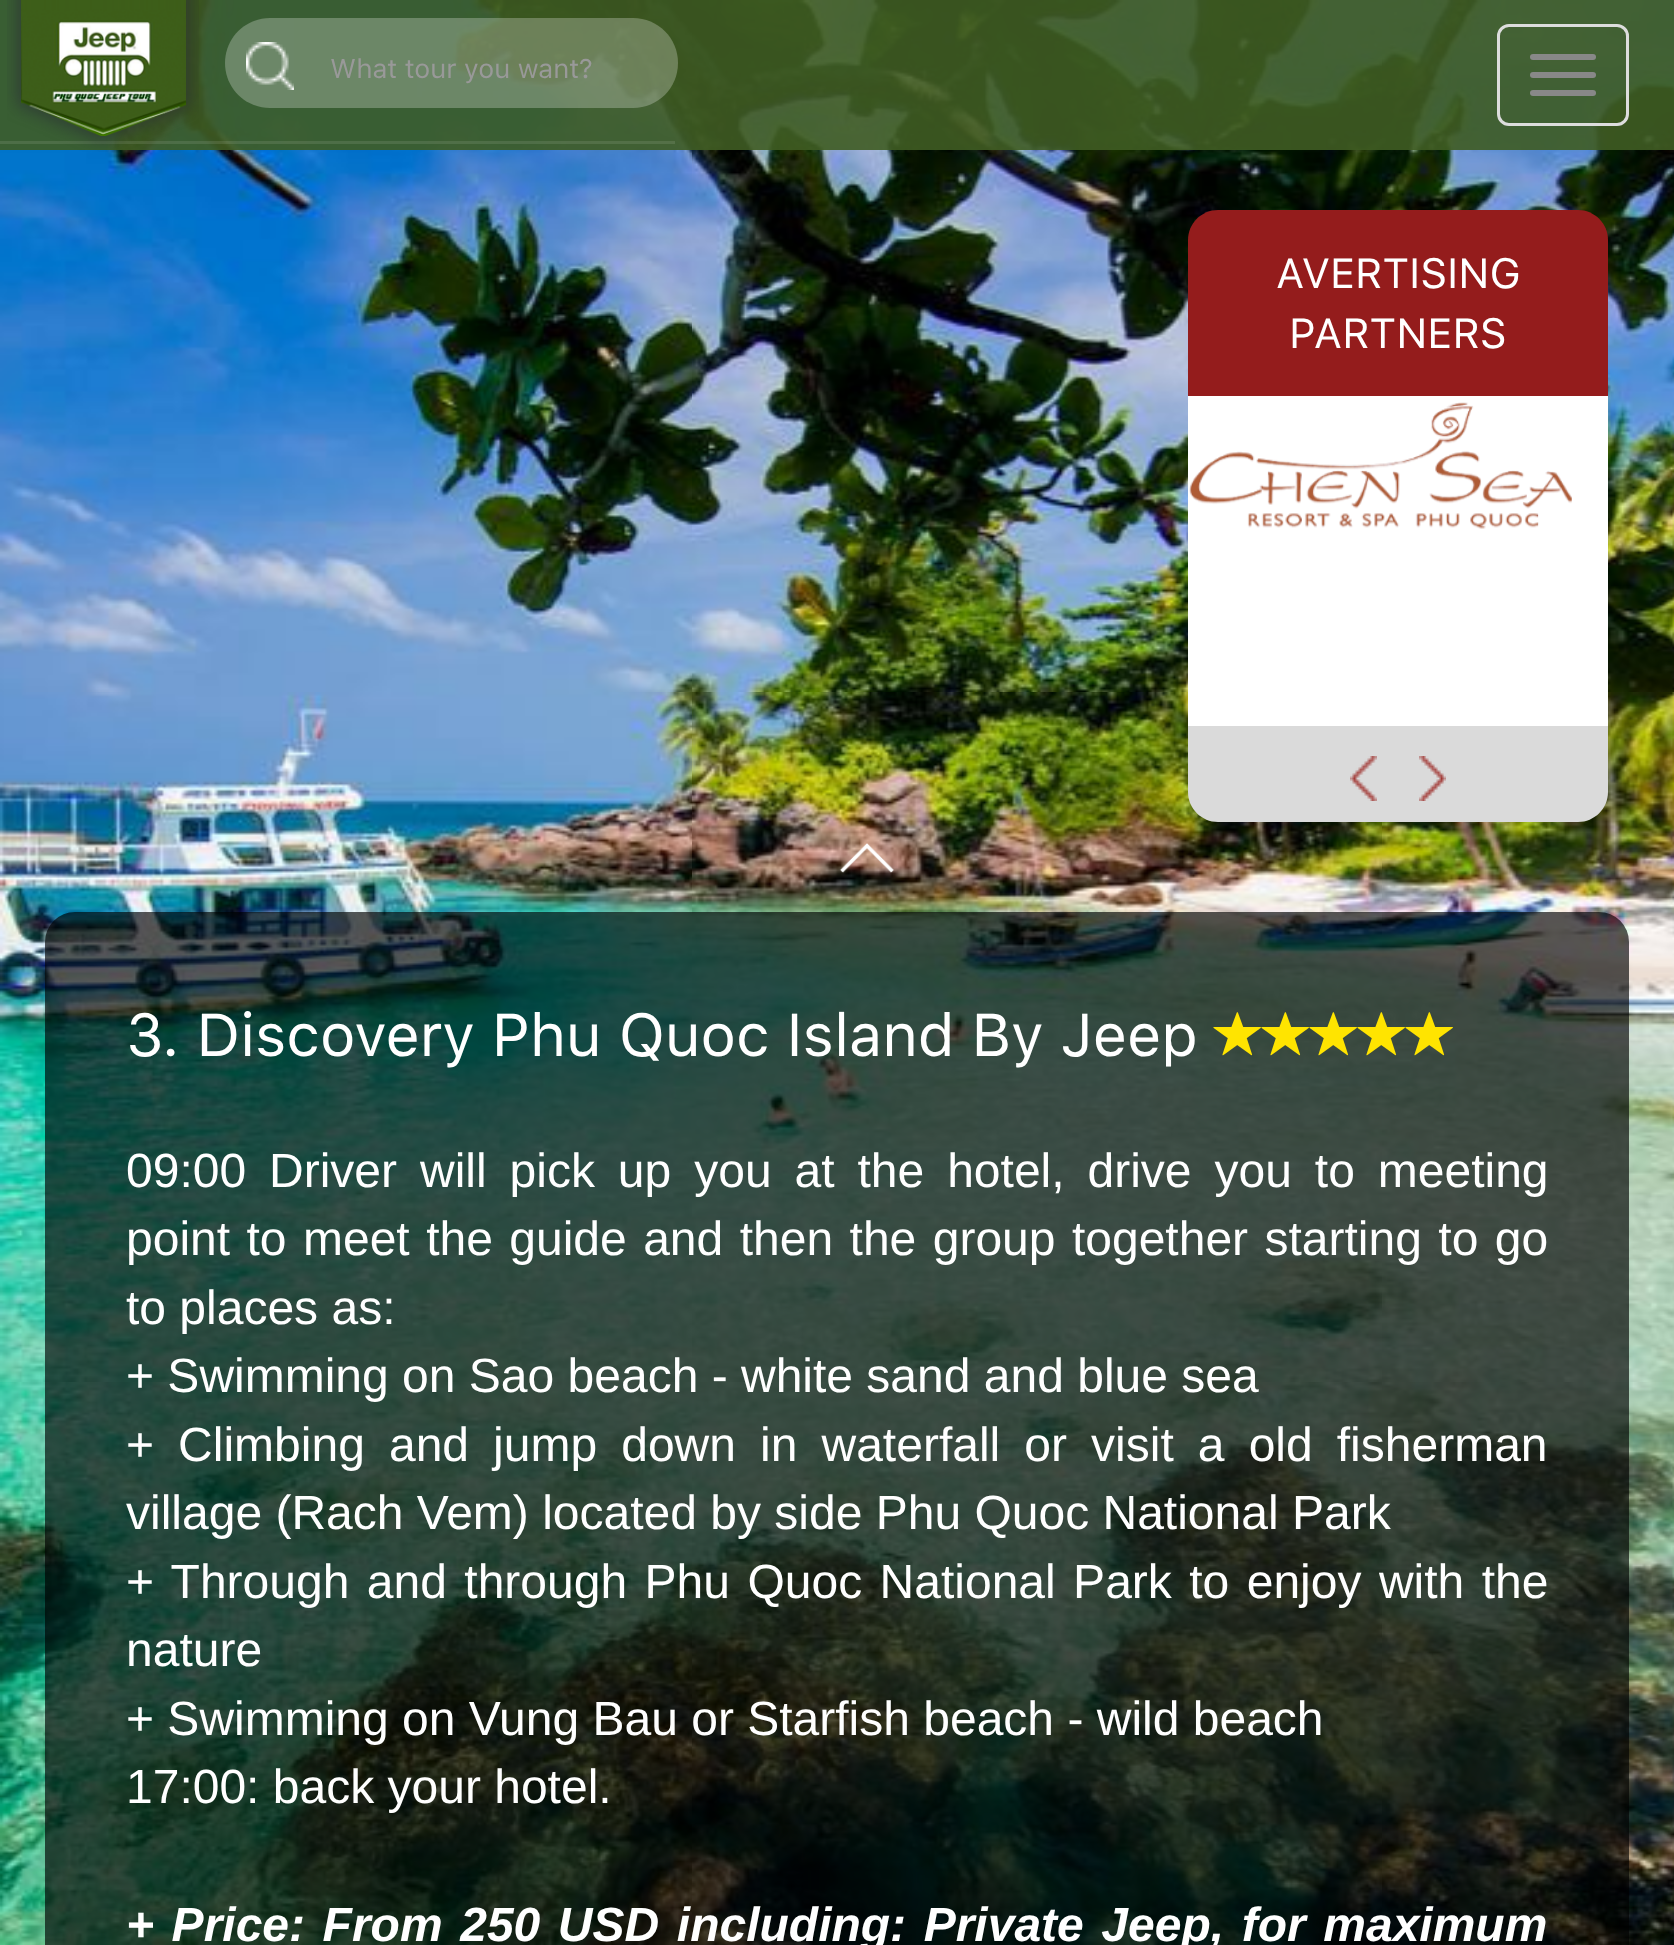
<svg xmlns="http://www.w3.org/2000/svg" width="1674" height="1945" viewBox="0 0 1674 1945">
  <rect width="100%" height="100%" fill="rgb(255,255,255)"/>
  <image x="0" y="0" width="1674" height="1945" href="pic1.png"/>
  <rect x="0" y="0" width="1674" height="150" fill="rgba(63,92,34,0.9)"/>
  <rect x="0" y="141" width="675" height="3" fill="rgba(255,255,255,0.1)"/>
  <image x="7" y="0" width="192" height="152" href="pic2.png"/>
  <rect x="1498.5" y="25.5" width="129" height="99" rx="10.5" fill="none" stroke="rgb(221,221,221)" stroke-width="3"/>
  <rect x="1530" y="54" width="66" height="6" rx="3" fill="rgb(136,136,136)"/>
  <rect x="1530" y="72" width="66" height="6" rx="3" fill="rgb(136,136,136)"/>
  <rect x="1530" y="90" width="66" height="6" rx="3" fill="rgb(136,136,136)"/>
  <path d="M270 18H294V108H270C245 108 225 88 225 63C225 38 245 18 270 18Z" fill="rgb(108,135,104)"/>
  <image x="246" y="42" width="48" height="48" href="pic3.png"/>
  <path d="M294 18H633C658 18 678 38 678 63C678 88 658 108 633 108H294Z" fill="rgba(255,255,255,0.26)"/>
  <text x="330" y="78" font-family="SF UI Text" font-size="27" fill="rgb(153,153,153)">What tour you want?</text>
  <path d="M1218 210H1578C1594.5 210 1608 223.5 1608 240V396H1188V240C1188 223.5 1201.5 210 1218 210Z" fill="rgb(148,28,28)"/>
  <g font-family="SF UI Text" font-size="42" fill="rgb(255,255,255)">
    <text x="1276" y="288">AVERTISING</text>
    <text x="1289" y="348">PARTNERS</text>
  </g>
  <rect x="1188" y="396" width="420" height="330" fill="rgb(255,255,255)"/>
  <image x="1189" y="402" width="383" height="127" href="pic4.png"/>
  <path d="M1188 726H1608V792C1608 808.5 1594.5 822 1578 822H1218C1201.5 822 1188 808.5 1188 792Z" fill="rgb(218,218,218)"/>
  <image x="1350" y="756" width="27" height="45" href="pic5.png"/>
  <image x="1419" y="756" width="27" height="45" href="pic6.png"/>
  <image x="839" y="843" width="55" height="30" href="pic7.png"/>
  <rect x="45" y="912" width="1584" height="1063" rx="30" fill="rgba(0,0,0,0.65)"/>
  <text x="126" y="1056" font-family="SF UI Text" font-size="60" fill="rgb(255,255,255)">3. Discovery Phu Quoc Island By Jeep</text>
  <image x="1213" y="1012" width="48" height="44" href="pic8.png"/>
  <image x="1261" y="1012" width="48" height="44" href="pic9.png"/>
  <image x="1309" y="1012" width="48" height="44" href="pic10.png"/>
  <image x="1357" y="1012" width="48" height="44" href="pic11.png"/>
  <image x="1405" y="1012" width="48" height="44" href="pic12.png"/>
  <g font-family="Liberation Sans" font-size="48" fill="rgb(255,255,255)">
    <text>
      <tspan x="126" y="1187" word-spacing="9.6">09:00 Driver will pick up you at the hotel, drive you to meeting</tspan>
      <tspan x="126" y="1255" word-spacing="3.1">point to meet the guide and then the group together starting to go</tspan>
      <tspan x="126" y="1324">to places as:</tspan>
      <tspan x="126" y="1392">+ Swimming on Sao beach - white sand and blue sea</tspan>
      <tspan x="126" y="1461" word-spacing="10.75">+ Climbing and jump down in waterfall or visit a old fisherman</tspan>
      <tspan x="126" y="1529">village (Rach Vem) located by side Phu Quoc National Park</tspan>
      <tspan x="126" y="1598" word-spacing="4.1">+ Through and through Phu Quoc National Park to enjoy with the</tspan>
      <tspan x="126" y="1666">nature</tspan>
      <tspan x="126" y="1735">+ Swimming on Vung Bau or Starfish beach - wild beach</tspan>
      <tspan x="126" y="1803">17:00: back your hotel.</tspan>
    </text>
  </g>
  <text x="126" y="1941" word-spacing="4.25" font-family="Liberation Sans" font-size="48" font-weight="bold" font-style="italic" fill="rgb(255,255,255)">+ Price: From 250 USD including: Private Jeep, for maximum</text>
</svg>
